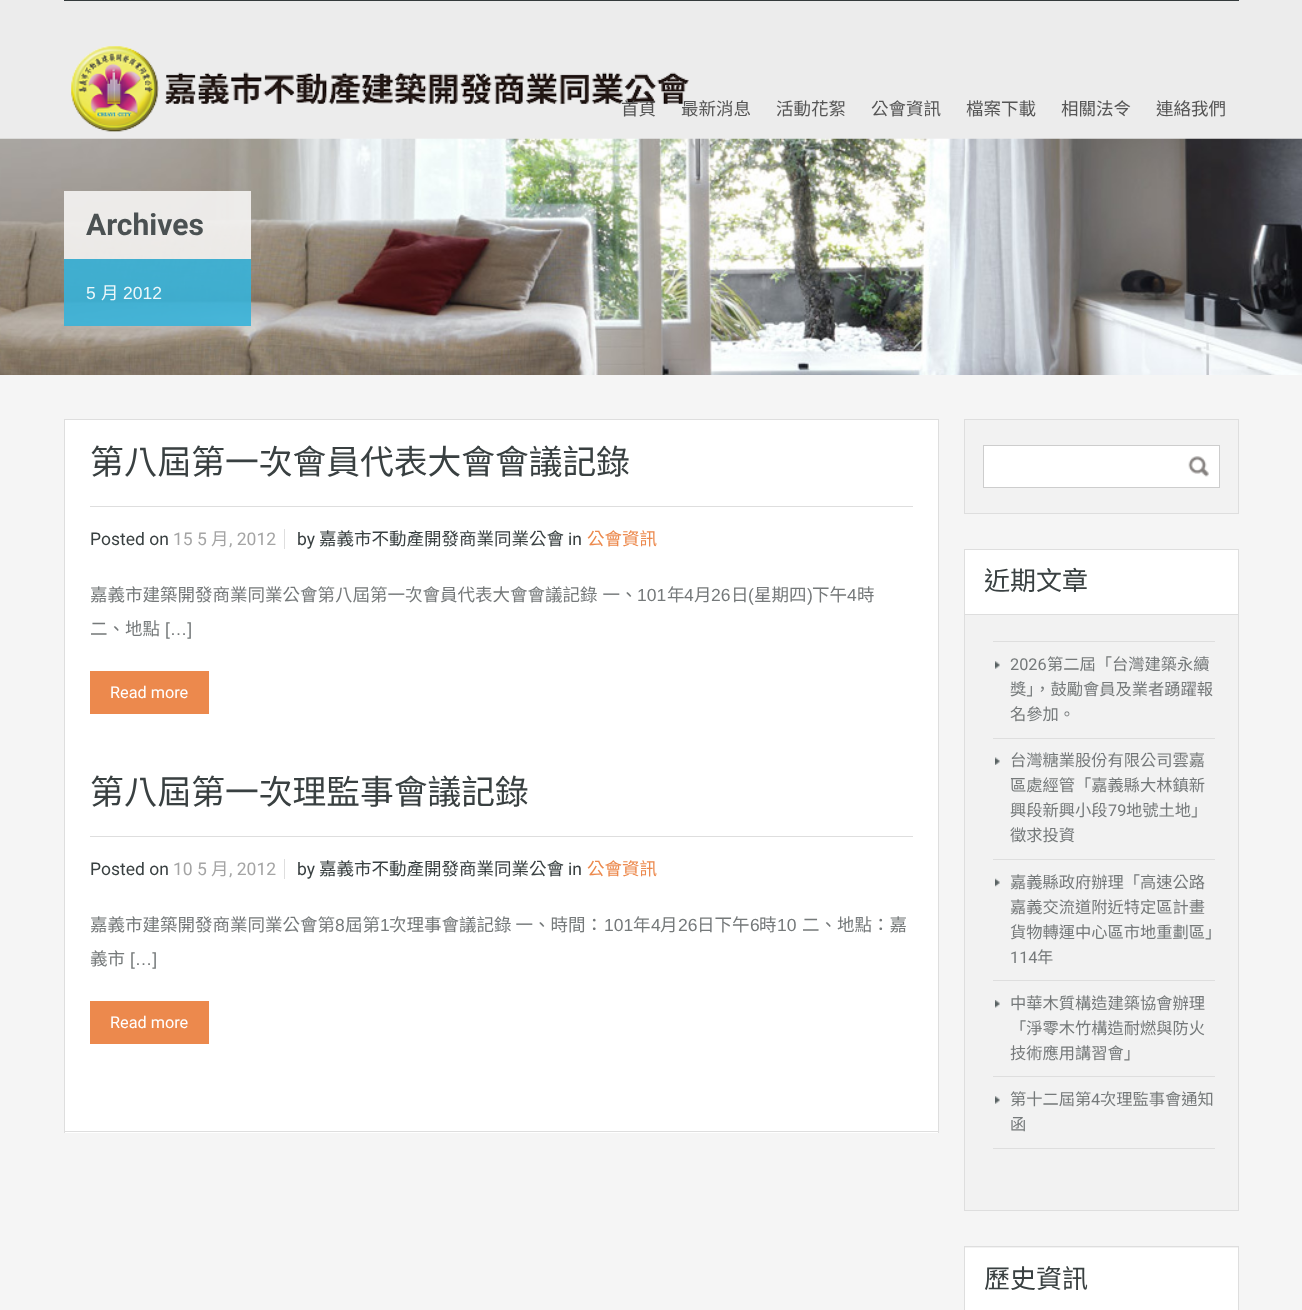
<svg xmlns="http://www.w3.org/2000/svg" width="1302" height="1310" viewBox="0 0 1302 1310">
  <rect width="100%" height="100%" fill="rgb(245,245,245)"/>
  <rect x="0" y="0" width="1302" height="139" fill="rgb(236,236,236)"/>
  <rect x="64" y="0" width="1175" height="1" fill="rgb(52,58,59)"/>
  <image x="71" y="46" width="618" height="86" href="pic1.png"/>
  <g font-family="Noto Sans CJK TC" font-size="17.5" fill="rgb(85,85,85)">
    <text x="621" y="115">首頁</text>
    <text x="681" y="115">最新消息</text>
    <text x="776" y="115">活動花絮</text>
    <text x="871" y="115">公會資訊</text>
    <text x="966" y="115">檔案下載</text>
    <text x="1061" y="115">相關法令</text>
    <text x="1156" y="115">連絡我們</text>
  </g>
  <image x="0" y="138" width="1302" height="237" href="pic2.png"/>
  <rect x="64" y="191" width="187" height="68" fill="rgba(245,244,243,0.9)"/>
  <text x="86" y="235" font-family="Roboto" font-size="30" font-weight="bold" fill="rgb(75,81,82)">Archives</text>
  <rect x="64" y="259" width="187" height="67" fill="rgba(55,179,217,0.9)"/>
  <text x="86" y="299" font-family="Liberation Sans" font-size="17.5" fill="rgb(236,247,250)">5</text>
  <text x="101" y="299" font-family="Noto Sans CJK TC" font-size="17.5" fill="rgb(236,247,250)">月</text>
  <text x="123" y="299" font-family="Liberation Sans" font-size="17.5" fill="rgb(236,247,250)">2012</text>
  <rect x="938" y="419" width="1" height="714" fill="rgb(222,222,222)"/>
  <rect x="64" y="419" width="1" height="714" fill="rgb(222,222,222)"/>
  <rect x="65" y="420" width="873" height="713" fill="rgb(255,255,255)"/>
  <rect x="65" y="419" width="873" height="1" fill="rgb(222,222,222)"/>
  <rect x="65" y="1131" width="873" height="1" fill="rgb(222,222,222)"/>
  <text x="90" y="474" font-family="Noto Sans CJK TC" font-size="33.75" fill="rgb(57,64,65)">第八屆第一次會員代表大會會議記錄</text>
  <rect x="90" y="506" width="823" height="1" fill="rgb(222,222,222)"/>
  <text x="90" y="545" font-family="Roboto" font-size="17.5" fill="rgb(57,64,65)">Posted on</text>
  <text x="173" y="545" font-family="Roboto" font-size="17.5" fill="rgb(164,164,164)">15 5</text>
  <text x="211" y="545" font-family="Noto Sans CJK TC" font-size="17.5" fill="rgb(164,164,164)">月</text>
  <text x="229" y="545" font-family="Roboto" font-size="17.5" fill="rgb(164,164,164)">, 2012</text>
  <rect x="284" y="529" width="1" height="20" fill="rgb(222,222,222)"/>
  <text x="297" y="545" font-family="Roboto" font-size="17.5" fill="rgb(57,64,65)">by</text>
  <text x="319" y="545" font-family="Noto Sans CJK TC" font-size="17.5" fill="rgb(57,64,65)">嘉義市不動產開發商業同業公會</text>
  <text x="568" y="545" font-family="Roboto" font-size="17.5" fill="rgb(57,64,65)">in</text>
  <text x="587" y="545" font-family="Noto Sans CJK TC" font-size="17.5" fill="rgb(236,137,77)">公會資訊</text>
  <text x="90" y="601" word-spacing="1" font-family="Noto Sans CJK TC" font-size="17.5" fill="rgb(117,121,122)">嘉義市建築開發商業同業公會第八屆第一次會員代表大會會議記錄 一、</text>
  <text x="637" y="601" font-family="Liberation Sans" font-size="17.5" fill="rgb(117,121,122)">101</text>
  <text x="667" y="601" font-family="Noto Sans CJK TC" font-size="17.5" fill="rgb(117,121,122)">年</text>
  <text x="684" y="601" font-family="Liberation Sans" font-size="17.5" fill="rgb(117,121,122)">4</text>
  <text x="694" y="601" font-family="Noto Sans CJK TC" font-size="17.5" fill="rgb(117,121,122)">月</text>
  <text x="711" y="601" font-family="Liberation Sans" font-size="17.5" fill="rgb(117,121,122)">26</text>
  <text x="731" y="601" font-family="Noto Sans CJK TC" font-size="17.5" fill="rgb(117,121,122)">日</text>
  <text x="748" y="601" font-family="Liberation Sans" font-size="17.5" fill="rgb(117,121,122)">(</text>
  <text x="754" y="601" font-family="Noto Sans CJK TC" font-size="17.5" fill="rgb(117,121,122)">星期四</text>
  <text x="807" y="601" font-family="Liberation Sans" font-size="17.5" fill="rgb(117,121,122)">)</text>
  <text x="812" y="601" font-family="Noto Sans CJK TC" font-size="17.5" fill="rgb(117,121,122)">下午</text>
  <text x="847" y="601" font-family="Liberation Sans" font-size="17.5" fill="rgb(117,121,122)">4</text>
  <g font-family="Noto Sans CJK TC" font-size="17.5" fill="rgb(117,121,122)">
    <text x="857" y="601">時</text>
    <text x="90" y="635">二、地點</text>
  </g>
  <text x="165" y="635" font-family="Liberation Sans" font-size="17.5" fill="rgb(117,121,122)">[…]</text>
  <rect x="90" y="671" width="119" height="43" fill="rgb(236,137,77)"/>
  <text x="110" y="698" font-family="Roboto" font-size="16.25" fill="rgb(255,255,255)">Read more</text>
  <text x="90" y="804" font-family="Noto Sans CJK TC" font-size="33.75" fill="rgb(57,64,65)">第八屆第一次理監事會議記錄</text>
  <rect x="90" y="836" width="823" height="1" fill="rgb(222,222,222)"/>
  <text x="90" y="875" font-family="Roboto" font-size="17.5" fill="rgb(57,64,65)">Posted on</text>
  <text x="173" y="875" font-family="Roboto" font-size="17.5" fill="rgb(164,164,164)">10 5</text>
  <text x="211" y="875" font-family="Noto Sans CJK TC" font-size="17.5" fill="rgb(164,164,164)">月</text>
  <text x="229" y="875" font-family="Roboto" font-size="17.5" fill="rgb(164,164,164)">, 2012</text>
  <rect x="284" y="859" width="1" height="20" fill="rgb(222,222,222)"/>
  <text x="297" y="875" font-family="Roboto" font-size="17.5" fill="rgb(57,64,65)">by</text>
  <text x="319" y="875" font-family="Noto Sans CJK TC" font-size="17.5" fill="rgb(57,64,65)">嘉義市不動產開發商業同業公會</text>
  <text x="568" y="875" font-family="Roboto" font-size="17.5" fill="rgb(57,64,65)">in</text>
  <text x="587" y="875" font-family="Noto Sans CJK TC" font-size="17.5" fill="rgb(236,137,77)">公會資訊</text>
  <text x="90" y="931" font-family="Noto Sans CJK TC" font-size="17.5" fill="rgb(117,121,122)">嘉義市建築開發商業同業公會第</text>
  <text x="335" y="931" font-family="Liberation Sans" font-size="17.5" fill="rgb(117,121,122)">8</text>
  <text x="345" y="931" font-family="Noto Sans CJK TC" font-size="17.5" fill="rgb(117,121,122)">屆第</text>
  <text x="380" y="931" font-family="Liberation Sans" font-size="17.5" fill="rgb(117,121,122)">1</text>
  <text x="389" y="931" font-family="Noto Sans CJK TC" font-size="17.5" fill="rgb(117,121,122)">次理事會議記錄 一、時間：</text>
  <text x="604" y="931" font-family="Liberation Sans" font-size="17.5" fill="rgb(117,121,122)">101</text>
  <text x="633" y="931" font-family="Noto Sans CJK TC" font-size="17.5" fill="rgb(117,121,122)">年</text>
  <text x="651" y="931" font-family="Liberation Sans" font-size="17.5" fill="rgb(117,121,122)">4</text>
  <text x="660" y="931" font-family="Noto Sans CJK TC" font-size="17.5" fill="rgb(117,121,122)">月</text>
  <text x="678" y="931" font-family="Liberation Sans" font-size="17.5" fill="rgb(117,121,122)">26</text>
  <text x="697" y="931" font-family="Noto Sans CJK TC" font-size="17.5" fill="rgb(117,121,122)">日下午</text>
  <text x="750" y="931" font-family="Liberation Sans" font-size="17.5" fill="rgb(117,121,122)">6</text>
  <text x="759" y="931" font-family="Noto Sans CJK TC" font-size="17.5" fill="rgb(117,121,122)">時</text>
  <text x="777" y="931" font-family="Liberation Sans" font-size="17.5" fill="rgb(117,121,122)">10</text>
  <g font-family="Noto Sans CJK TC" font-size="17.5" fill="rgb(117,121,122)">
    <text x="802" y="931">二、地點：嘉</text>
    <text x="90" y="965">義市</text>
  </g>
  <text x="130" y="965" font-family="Liberation Sans" font-size="17.5" fill="rgb(117,121,122)">[…]</text>
  <rect x="90" y="1001" width="119" height="43" fill="rgb(236,137,77)"/>
  <text x="110" y="1028" font-family="Roboto" font-size="16.25" fill="rgb(255,255,255)">Read more</text>
  <rect x="964.5" y="419.5" width="274" height="94" fill="rgb(242,242,242)" stroke="rgb(222,222,222)"/>
  <rect x="983.5" y="445.5" width="236" height="42" fill="rgb(255,255,255)" stroke="rgb(205,205,205)"/>
  <image x="1188" y="456" width="21" height="21" href="pic3.png"/>
  <rect x="965" y="615" width="273" height="595" fill="rgb(242,242,242)"/>
  <rect x="964.5" y="549.5" width="274" height="661" fill="none" stroke="rgb(222,222,222)"/>
  <rect x="965" y="550" width="273" height="64" fill="rgb(255,255,255)"/>
  <rect x="965" y="614" width="273" height="1" fill="rgb(222,222,222)"/>
  <text x="984" y="590" font-family="Noto Sans CJK TC" font-size="26" fill="rgb(57,64,65)">近期文章</text>
  <image x="995" y="661" width="5" height="8" href="pic4.png"/>
  <rect x="993" y="641" width="222" height="1" fill="rgb(222,222,222)"/>
  <rect x="993" y="738" width="222" height="1" fill="rgb(222,222,222)"/>
  <text x="1010" y="670" font-family="Roboto" font-size="16.25" fill="rgb(117,121,122)">2026</text>
  <g font-family="Noto Sans CJK TC" font-size="16.25" fill="rgb(117,121,122)">
    <text x="1047" y="670">第二屆「台灣建築永續</text>
    <text>
      <tspan x="1010" y="695">獎」，鼓勵會員及業者踴躍報</tspan>
      <tspan x="1010" y="720">名參加。</tspan>
    </text>
  </g>
  <image x="995" y="757" width="5" height="8" href="pic5.png"/>
  <rect x="993" y="859" width="222" height="1" fill="rgb(222,222,222)"/>
  <g font-family="Noto Sans CJK TC" font-size="16.25" fill="rgb(117,121,122)">
    <text>
      <tspan x="1010" y="766">台灣糖業股份有限公司雲嘉</tspan>
      <tspan x="1010" y="791">區處經管「嘉義縣大林鎮新</tspan>
      <tspan x="1010" y="816">興段新興小段</tspan>
    </text>
  </g>
  <text x="1108" y="816" font-family="Roboto" font-size="16.25" fill="rgb(117,121,122)">79</text>
  <g font-family="Noto Sans CJK TC" font-size="16.25" fill="rgb(117,121,122)">
    <text x="1126" y="816">地號土地」</text>
    <text x="1010" y="841">徵求投資</text>
  </g>
  <image x="995" y="878" width="5" height="9" href="pic6.png"/>
  <rect x="993" y="980" width="222" height="1" fill="rgb(222,222,222)"/>
  <g font-family="Noto Sans CJK TC" font-size="16.25" fill="rgb(117,121,122)">
    <text>
      <tspan x="1010" y="888">嘉義縣政府辦理「高速公路</tspan>
      <tspan x="1010" y="913">嘉義交流道附近特定區計畫</tspan>
      <tspan x="1010" y="938">貨物轉運中心區市地重劃區」</tspan>
    </text>
  </g>
  <text x="1010" y="963" font-family="Roboto" font-size="16.25" fill="rgb(117,121,122)">114</text>
  <text x="1037" y="963" font-family="Noto Sans CJK TC" font-size="16.25" fill="rgb(117,121,122)">年</text>
  <image x="995" y="1000" width="5" height="8" href="pic7.png"/>
  <rect x="993" y="1076" width="222" height="1" fill="rgb(222,222,222)"/>
  <g font-family="Noto Sans CJK TC" font-size="16.25" fill="rgb(117,121,122)">
    <text>
      <tspan x="1010" y="1009">中華木質構造建築協會辦理</tspan>
      <tspan x="1010" y="1034">「淨零木竹構造耐燃與防火</tspan>
      <tspan x="1010" y="1059">技術應用講習會」</tspan>
    </text>
  </g>
  <image x="995" y="1096" width="5" height="8" href="pic4.png"/>
  <rect x="993" y="1148" width="222" height="1" fill="rgb(222,222,222)"/>
  <text x="1010" y="1105" font-family="Noto Sans CJK TC" font-size="16.25" fill="rgb(117,121,122)">第十二屆第</text>
  <text x="1091" y="1105" font-family="Roboto" font-size="16.25" fill="rgb(117,121,122)">4</text>
  <g font-family="Noto Sans CJK TC" font-size="16.25" fill="rgb(117,121,122)">
    <text x="1100" y="1105">次理監事會通知</text>
    <text x="1010" y="1130">函</text>
  </g>
  <rect x="965" y="1247" width="273" height="1" fill="rgb(242,242,242)"/>
  <rect x="964.5" y="1246.5" width="274" height="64" fill="none" stroke="rgb(222,222,222)"/>
  <rect x="965" y="1248" width="273" height="62" fill="rgb(255,255,255)"/>
  <text x="984" y="1288" font-family="Noto Sans CJK TC" font-size="26" fill="rgb(57,64,65)">歷史資訊</text>
</svg>
